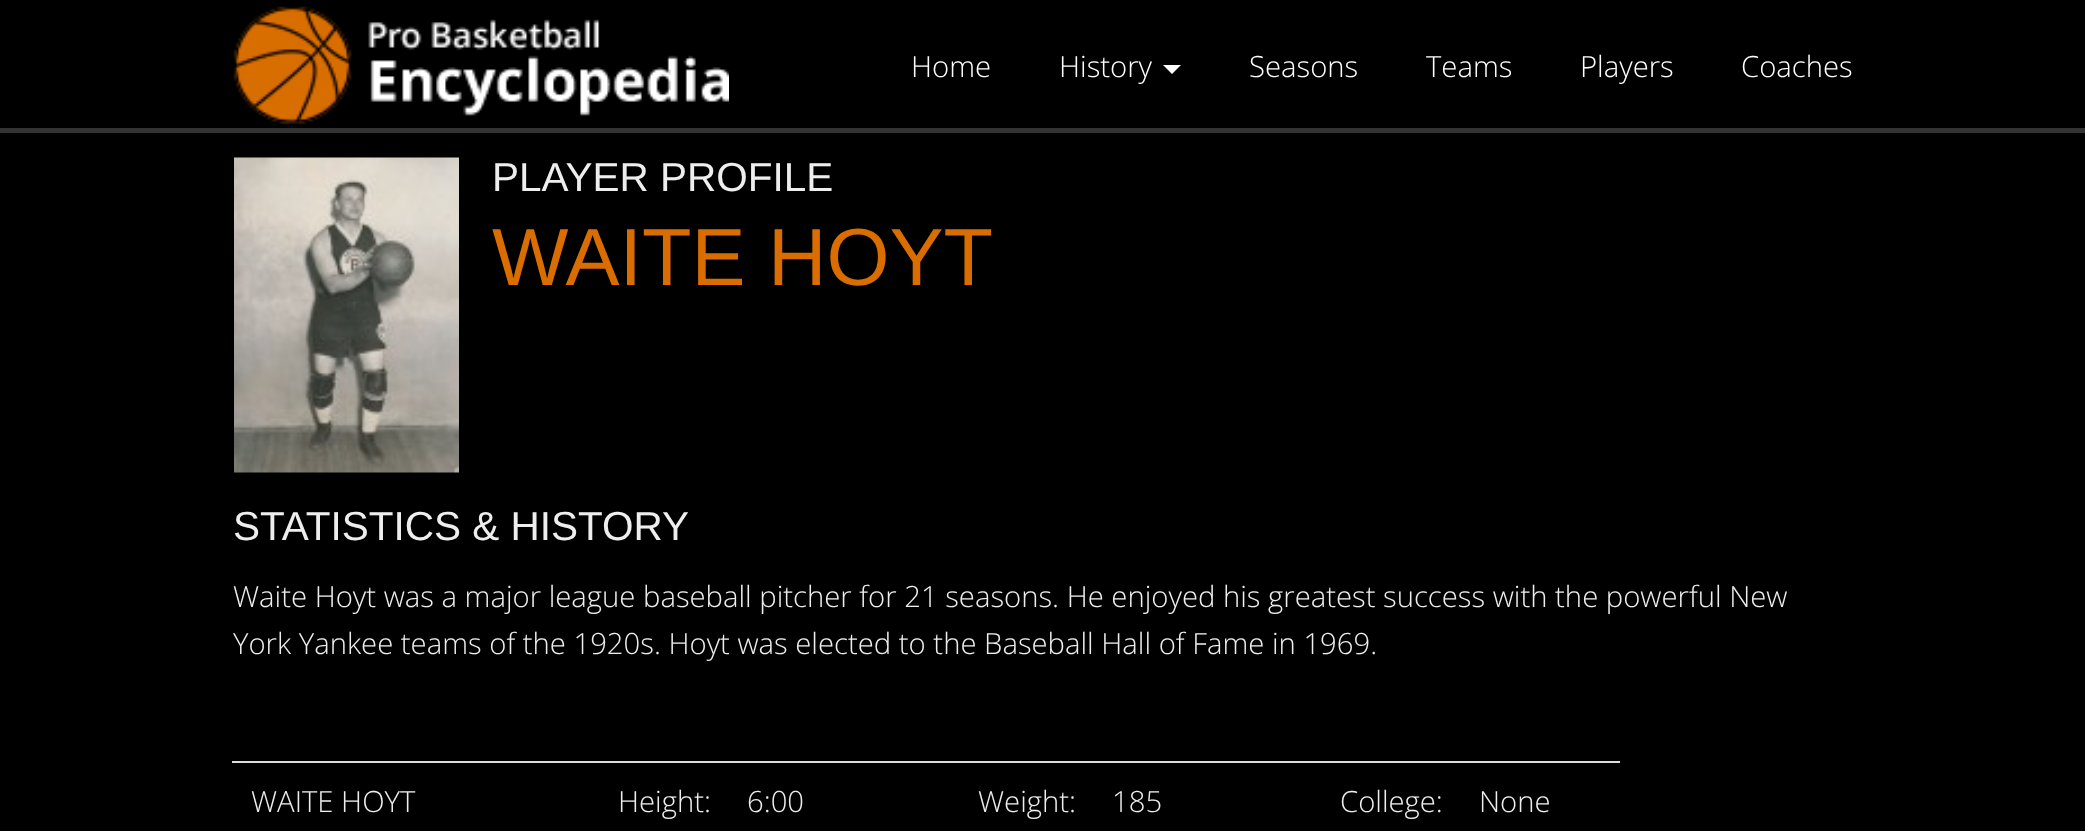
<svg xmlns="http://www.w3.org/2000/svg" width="2085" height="831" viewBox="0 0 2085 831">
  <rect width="100%" height="100%" fill="rgb(0,0,0)"/>
  <rect x="0" y="128" width="2085" height="5" fill="rgb(51,51,51)"/>
  <image x="233" y="6" width="496" height="118" href="pic1.png"/>
  <g font-family="Open Sans" font-size="29.25" font-weight="300" fill="rgb(255,255,255)">
    <text x="911" y="77">Home</text>
    <text x="1059" y="77">History</text>
  </g>
  <path d="M1163 65H1181L1172 74Z" fill="rgb(255,255,255)"/>
  <g font-family="Open Sans" font-size="29.25" font-weight="300" fill="rgb(255,255,255)">
    <text x="1249" y="77">Seasons</text>
    <text x="1426" y="77">Teams</text>
    <text x="1580" y="77">Players</text>
    <text x="1741" y="77">Coaches</text>
  </g>
  <image x="234" y="157" width="225" height="316" href="pic2.png"/>
  <text x="492" y="191" font-family="Liberation Sans" font-size="40.5" fill="rgb(238,238,238)">PLAYER PROFILE</text>
  <text x="492" y="285" font-family="Liberation Sans" font-size="81" fill="rgb(217,109,0)">WAITE HOYT</text>
  <text x="233" y="540" font-family="Liberation Sans" font-size="40.5" fill="rgb(238,238,238)">STATISTICS &amp; HISTORY</text>
  <g font-family="Open Sans" font-size="29.25" font-weight="300" fill="rgb(238,238,238)">
    <text>
      <tspan x="233" y="607">Waite Hoyt was a major league baseball pitcher for 21 seasons. He enjoyed his greatest success with the powerful New</tspan>
      <tspan x="233" y="654">York Yankee teams of the 1920s. Hoyt was elected to the Baseball Hall of Fame in 1969.</tspan>
    </text>
    <text x="251" y="812">WAITE HOYT</text>
    <text x="618" y="812">Height:</text>
    <text x="747" y="812">6:00</text>
    <text x="978" y="812">Weight:</text>
    <text x="1112" y="812">185</text>
    <text x="1340" y="812">College:</text>
  </g>
  <rect x="232" y="761" width="1388" height="2" fill="rgb(221,221,221)"/>
  <text x="1479" y="812" font-family="Open Sans" font-size="29.25" font-weight="300" fill="rgb(238,238,238)">None</text>
</svg>
